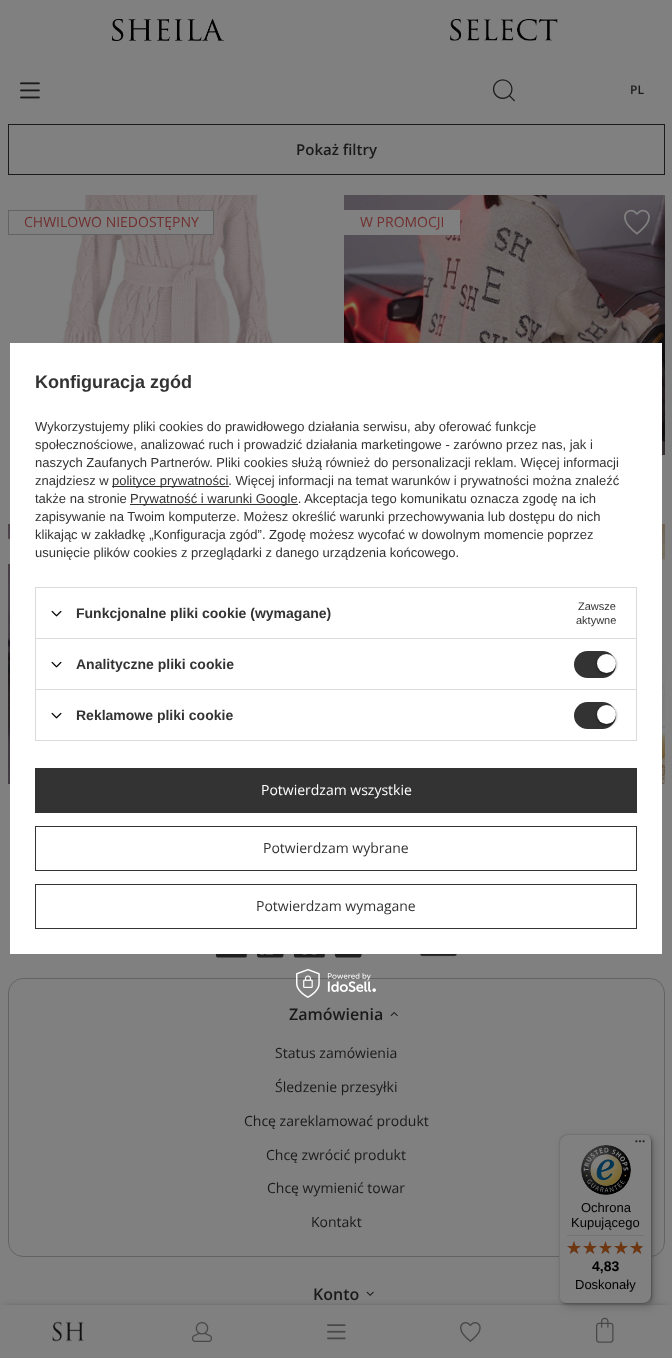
<svg xmlns="http://www.w3.org/2000/svg" width="672" height="1358" viewBox="0 0 672 1358">
  <rect width="100%" height="100%" fill="rgb(128,128,128)"/>
  <image x="112" y="19" width="112" height="22" href="pic1.png"/>
  <image x="450" y="19" width="108" height="22" href="pic2.png"/>
  <image x="20" y="82" width="20" height="17" href="pic3.png"/>
  <image x="492" y="79" width="23" height="23" href="pic4.png"/>
  <text x="630" y="94" font-family="Open Sans" font-size="12" font-weight="600" fill="rgb(26,26,26)">PL</text>
  <rect x="8.5" y="124.5" width="656" height="50" fill="none" stroke="rgb(26,26,26)"/>
  <text x="296" y="155" font-family="Open Sans" font-size="15" font-weight="600" fill="rgb(26,26,26)">Pokaż filtry</text>
  <image x="60" y="195" width="217" height="148" href="pic5.png"/>
  <rect x="81" y="211" width="132" height="23" fill="rgb(128,128,128)"/>
  <rect x="8.5" y="210.5" width="205" height="24" fill="none" stroke="rgb(98,100,100)"/>
  <text x="24" y="227" font-family="Open Sans" font-size="14" fill="rgb(114,46,46)">CHWILOWO NIEDOSTĘPNY</text>
  <image x="344" y="195" width="321" height="260" href="pic6.png"/>
  <rect x="344" y="210" width="116" height="25" fill="rgb(128,128,128)"/>
  <text x="360" y="227" font-family="Open Sans" font-size="14" fill="rgb(114,46,46)">W PROMOCJI</text>
  <image x="624" y="209" width="26" height="26" href="pic7.png"/>
  <image x="8" y="524" width="2" height="260" href="pic8.png"/>
  <rect x="8" y="539" width="2" height="25" fill="rgb(128,128,128)"/>
  <image x="662" y="524" width="3" height="260" href="pic9.png"/>
  <rect x="10" y="343" width="652" height="611" fill="rgb(255,255,255)"/>
  <text x="35" y="388" font-family="Liberation Sans" font-size="18" font-weight="bold" fill="rgb(51,51,51)">Konfiguracja zgód</text>
  <g font-family="Liberation Sans" font-size="13" fill="rgb(51,51,51)">
    <text>
      <tspan x="35" y="431">Wykorzystujemy pliki cookies do prawidłowego działania serwisu, aby oferować funkcje</tspan>
      <tspan x="35" y="449">społecznościowe, analizować ruch i prowadzić działania marketingowe - zarówno przez nas, jak i</tspan>
      <tspan x="35" y="467">naszych Zaufanych Partnerów. Pliki cookies służą również do personalizacji reklam. Więcej informacji</tspan>
      <tspan x="35" y="485">znajdziesz w</tspan>
    </text>
  </g>
  <rect x="112" y="486" width="117" height="1" fill="rgb(51,51,51)"/>
  <g font-family="Liberation Sans" font-size="13" fill="rgb(51,51,51)">
    <text x="112" y="485">polityce prywatności. Więcej informacji na temat warunków i prywatności można znaleźć</text>
    <text x="35" y="503">także na stronie</text>
  </g>
  <rect x="130" y="504" width="168" height="1" fill="rgb(51,51,51)"/>
  <g font-family="Liberation Sans" font-size="13" fill="rgb(51,51,51)">
    <text x="130" y="503">Prywatność i warunki Google. Akceptacja tego komunikatu oznacza zgodę na ich</text>
    <text>
      <tspan x="35" y="521">zapisywanie na Twoim komputerze. Możesz określić warunki przechowywania lub dostępu do nich</tspan>
      <tspan x="35" y="539">klikając w zakładkę „Konfiguracja zgód”. Zgodę możesz wycofać w dowolnym momencie poprzez</tspan>
      <tspan x="35" y="557">usunięcie plików cookies z przeglądarki z danego urządzenia końcowego.</tspan>
    </text>
  </g>
  <rect x="35" y="587" width="602" height="1" fill="rgb(219,219,219)"/>
  <rect x="636" y="587" width="1" height="51" fill="rgb(219,219,219)"/>
  <rect x="35" y="587" width="1" height="51" fill="rgb(219,219,219)"/>
  <image x="51" y="610" width="11" height="7" href="pic10.png"/>
  <text x="76" y="618" font-family="Liberation Sans" font-size="14" font-weight="bold" fill="rgb(51,51,51)">Funkcjonalne pliki cookie (wymagane)</text>
  <g font-family="Liberation Sans" font-size="11" fill="rgb(51,51,51)">
    <text x="578" y="610">Zawsze</text>
    <text x="576" y="624">aktywne</text>
  </g>
  <rect x="35" y="638" width="602" height="1" fill="rgb(219,219,219)"/>
  <rect x="636" y="638" width="1" height="51" fill="rgb(219,219,219)"/>
  <rect x="35" y="638" width="1" height="51" fill="rgb(219,219,219)"/>
  <image x="51" y="661" width="11" height="7" href="pic10.png"/>
  <text x="76" y="669" font-family="Liberation Sans" font-size="14" font-weight="bold" fill="rgb(51,51,51)">Analityczne pliki cookie</text>
  <rect x="574" y="651" width="42" height="27" rx="13.5" fill="rgb(51,51,51)"/>
  <rect x="597" y="655" width="19" height="19" rx="9.5" fill="rgba(0,0,0,0.56)" filter="blur(1.5px)"/>
  <circle cx="606.5" cy="663.5" r="9.5" fill="rgb(255,255,255)"/>
  <rect x="35.5" y="689.5" width="601" height="51" fill="none" stroke="rgb(219,219,219)"/>
  <image x="51" y="712" width="11" height="7" href="pic10.png"/>
  <text x="76" y="720" font-family="Liberation Sans" font-size="14" font-weight="bold" fill="rgb(51,51,51)">Reklamowe pliki cookie</text>
  <rect x="574" y="702" width="42" height="27" rx="13.5" fill="rgb(51,51,51)"/>
  <rect x="597" y="706" width="19" height="19" rx="9.5" fill="rgba(0,0,0,0.56)" filter="blur(1.5px)"/>
  <circle cx="606.5" cy="714.5" r="9.5" fill="rgb(255,255,255)"/>
  <rect x="35" y="768" width="602" height="45" fill="rgb(51,51,51)"/>
  <text x="261" y="795" font-family="Open Sans" font-size="14" fill="rgb(255,255,255)">Potwierdzam wszystkie</text>
  <rect x="35.5" y="826.5" width="601" height="44" fill="none" stroke="rgb(51,51,51)"/>
  <text x="263" y="853" font-family="Open Sans" font-size="14" fill="rgb(51,51,51)">Potwierdzam wybrane</text>
  <rect x="35.5" y="884.5" width="601" height="44" fill="none" stroke="rgb(51,51,51)"/>
  <text x="256" y="911" font-family="Open Sans" font-size="14" fill="rgb(51,51,51)">Potwierdzam wymagane</text>
  <rect x="8.5" y="978.5" width="656" height="278" rx="14.5" fill="none" stroke="rgb(98,100,100)"/>
  <image x="296" y="969" width="80" height="29" href="pic11.png"/>
  <image x="216" y="954" width="31" height="4" href="pic12.png"/>
  <image x="257" y="954" width="27" height="4" href="pic13.png"/>
  <image x="294" y="954" width="31" height="4" href="pic14.png"/>
  <image x="335" y="954" width="27" height="4" href="pic15.png"/>
  <image x="420" y="954" width="37" height="3" href="pic16.png"/>
  <text x="289" y="1020" font-family="Open Sans" font-size="16" font-weight="600" fill="rgb(26,26,26)">Zamówienia</text>
  <image x="390" y="1012" width="8" height="5" href="pic17.png"/>
  <g font-family="Open Sans" font-size="14" fill="rgb(26,26,26)">
    <text x="275" y="1058">Status zamówienia</text>
    <text x="275" y="1092">Śledzenie przesyłki</text>
    <text x="244" y="1126">Chcę zareklamować produkt</text>
    <text x="266" y="1160">Chcę zwrócić produkt</text>
    <text x="267" y="1193">Chcę wymienić towar</text>
    <text x="311" y="1227">Kontakt</text>
  </g>
  <text x="313" y="1300" font-family="Open Sans" font-size="16" font-weight="600" fill="rgb(26,26,26)">Konto</text>
  <image x="366" y="1291" width="8" height="5" href="pic18.png"/>
  <rect x="5" y="1310" width="662" height="43" fill="rgb(33,34,45)" filter="blur(5px)"/>
  <rect x="0" y="1305" width="672" height="53" fill="rgb(128,128,128)"/>
  <image x="596" y="1317" width="18" height="26" href="pic30.png"/>
  <rect x="562" y="1137" width="93" height="170" rx="8" fill="rgba(0,0,0,0.15)" filter="blur(4px)"/>
  <rect x="560" y="1135" width="93" height="170" rx="8" fill="rgba(0,0,0,0.15)" filter="blur(1px)"/>
  <rect x="559" y="1134" width="93" height="170" rx="8" fill="rgb(128,128,128)"/>
  <path d="M568 1135H645C647 1135 649 1136 651 1138C649 1136 647 1134 644 1134H567C563 1134 559 1138 559 1142V1296C559 1299 561 1301 563 1303C561 1301 560 1299 560 1297V1143C560 1139 564 1135 568 1135Z" fill="rgb(115,115,115)"/>
  <path d="M560 1300C562 1302 564 1304 567 1304H644C648 1304 652 1300 652 1296V1142C652 1139 650 1137 648 1135C650 1137 651 1139 651 1141V1295C651 1299 647 1303 643 1303H566C564 1303 562 1302 560 1300Z" fill="rgba(0,0,0,0.2)"/>
  <path d="M561 1301C562 1303 565 1304 567 1304H644C648 1304 652 1300 652 1296V1142C652 1140 651 1137 649 1136C650 1137 651 1139 651 1141V1295C651 1300 648 1303 643 1303H566C564 1303 562 1302 561 1301Z" fill="rgba(25,25,25,0.2)"/>
  <image x="635" y="1140" width="10" height="3" href="pic19.png"/>
  <path d="M644 1304C648.5 1304 652 1300.5 652 1296C652 1300 648 1304 644 1304Z" fill="rgba(128,128,128,0.3)"/>
  <image x="581" y="1145" width="50" height="50" href="pic20.png"/>
  <g font-family="Liberation Sans" font-size="13" fill="rgb(0,0,0)">
    <text x="581" y="1212">Ochrona</text>
    <text x="571" y="1227">Kupującego</text>
  </g>
  <rect x="567" y="1235" width="77" height="1" fill="rgb(115,115,115)"/>
  <image x="567" y="1241" width="14" height="13" href="pic21.png"/>
  <image x="583" y="1241" width="14" height="13" href="pic21.png"/>
  <image x="599" y="1241" width="13" height="13" href="pic22.png"/>
  <image x="614" y="1241" width="14" height="13" href="pic21.png"/>
  <image x="630" y="1241" width="14" height="13" href="pic21.png"/>
  <image x="567" y="1241" width="14" height="13" href="pic23.png"/>
  <image x="583" y="1241" width="14" height="13" href="pic23.png"/>
  <image x="599" y="1241" width="13" height="13" href="pic24.png"/>
  <image x="614" y="1241" width="14" height="13" href="pic23.png"/>
  <image x="630" y="1241" width="12" height="13" href="pic25.png"/>
  <text x="592" y="1271" font-family="Liberation Sans" font-size="14" font-weight="bold" fill="rgb(0,0,0)">4,83</text>
  <text x="575" y="1289" font-family="Liberation Sans" font-size="13" fill="rgb(0,0,0)">Doskonały</text>
  <image x="52" y="1321" width="32" height="21" href="pic26.png"/>
  <image x="192" y="1322" width="20" height="20" href="pic27.png"/>
  <image x="327" y="1324" width="19" height="16" href="pic28.png"/>
  <image x="460" y="1322" width="21" height="20" href="pic29.png"/>
</svg>
